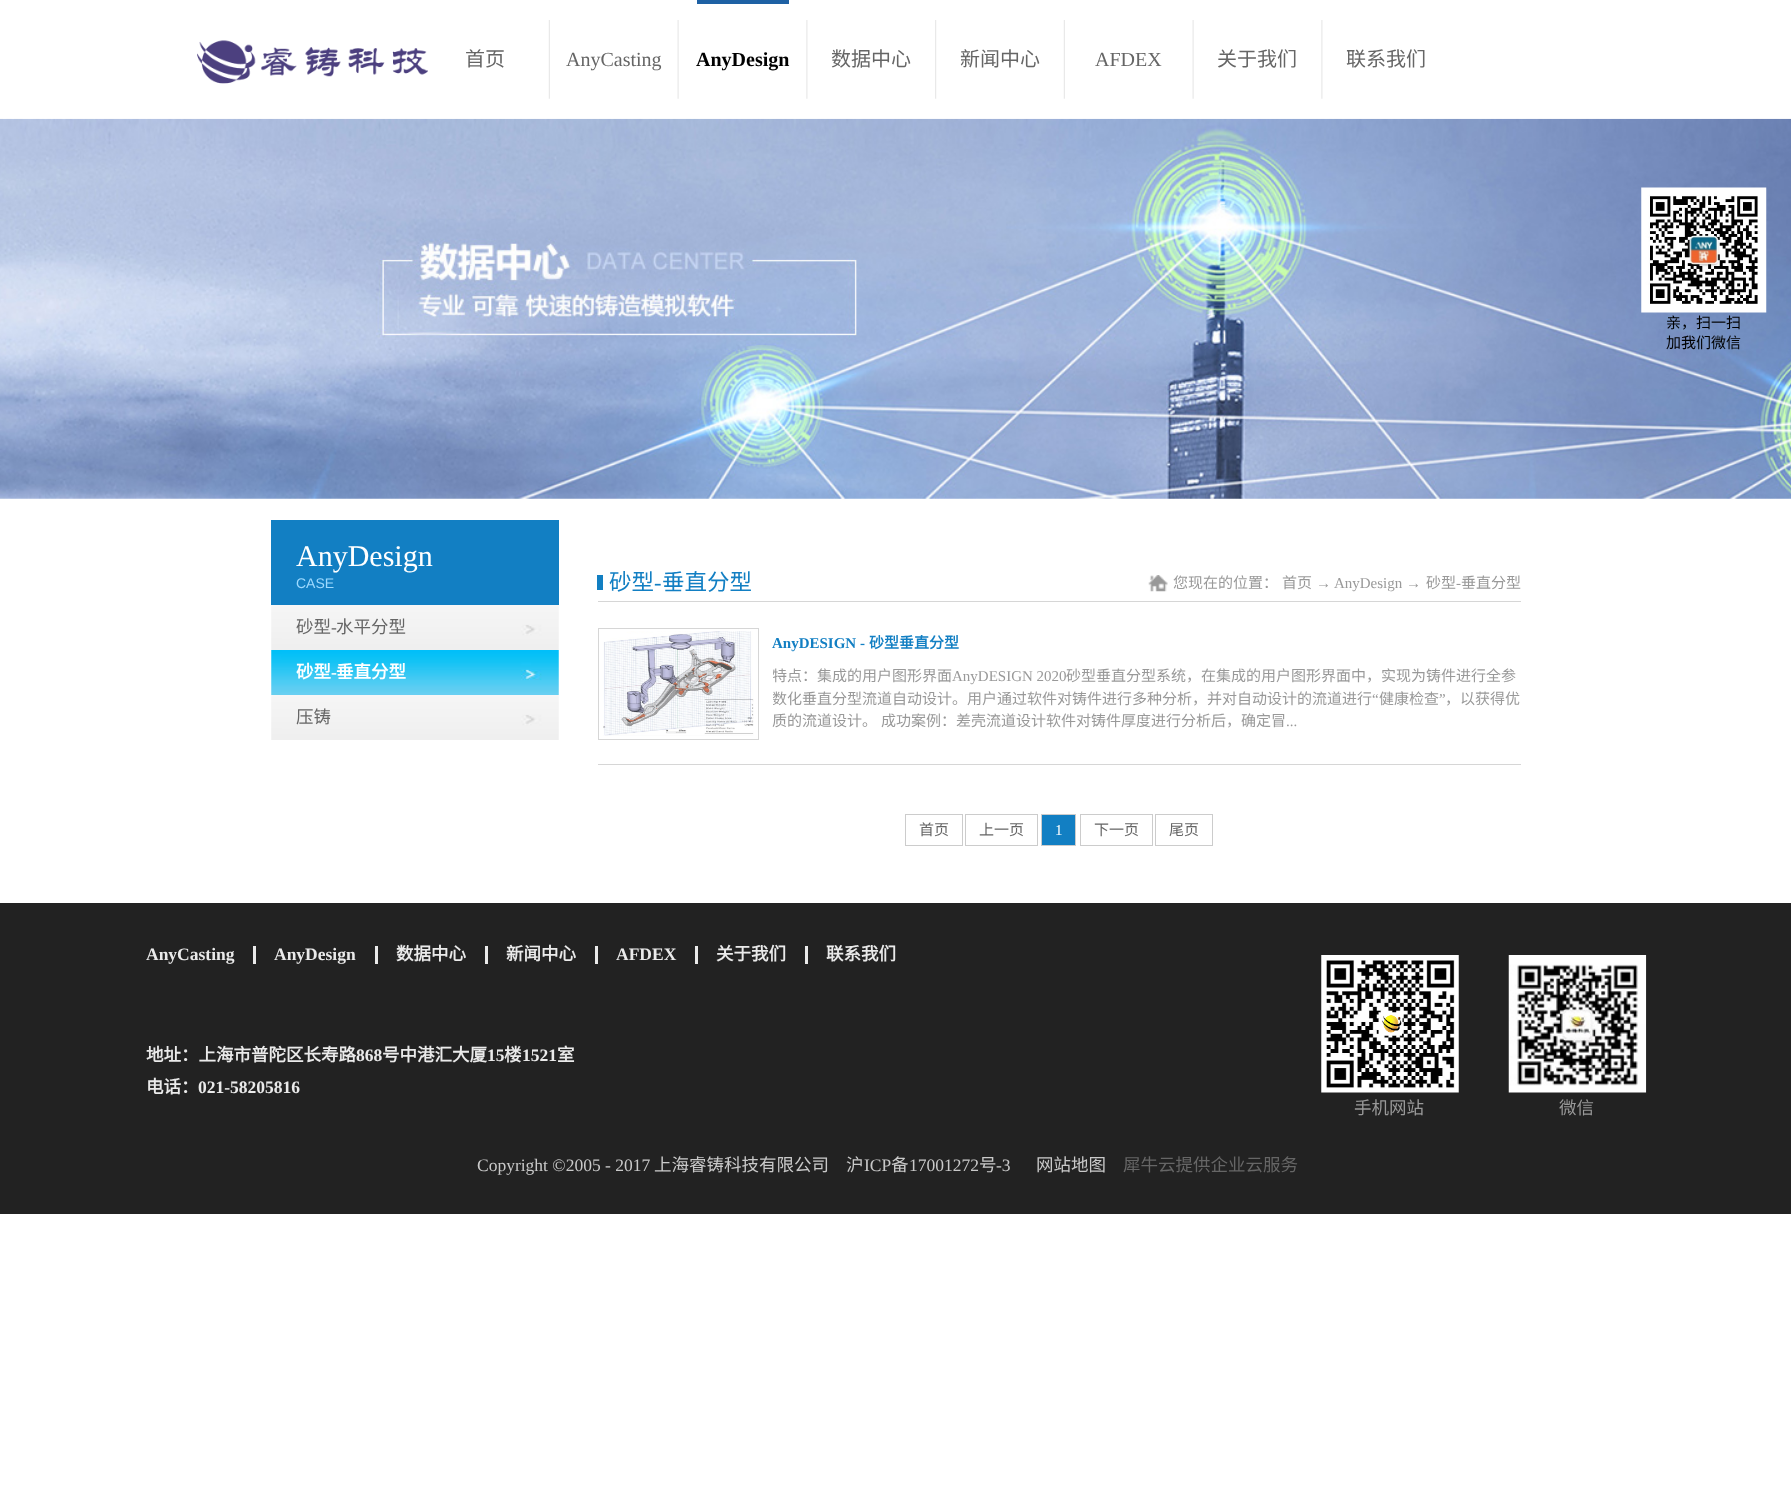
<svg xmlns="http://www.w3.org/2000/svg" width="1791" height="1508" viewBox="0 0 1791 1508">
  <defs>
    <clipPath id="clip1"><rect x="773" y="665" width="748" height="68"/></clipPath>
  </defs>
  <rect width="100%" height="100%" fill="rgb(255,255,255)"/>
  <image x="197" y="40" width="231" height="44" href="pic1.png"/>
  <image x="548" y="20" width="2" height="79" href="pic2.png"/>
  <text x="465" y="66" font-family="Noto Sans CJK SC" font-size="20" fill="rgb(102,102,102)">首页</text>
  <image x="677" y="20" width="2" height="79" href="pic3.png"/>
  <text x="566" y="66" font-family="Liberation Serif" font-size="20" fill="rgb(102,102,102)">AnyCasting</text>
  <image x="806" y="20" width="2" height="79" href="pic4.png"/>
  <rect x="697" y="0" width="92" height="4" fill="rgb(30,97,164)"/>
  <text x="696" y="66" font-family="Liberation Serif" font-size="20" font-weight="bold" fill="rgb(0,0,0)">AnyDesign</text>
  <image x="935" y="20" width="2" height="79" href="pic5.png"/>
  <text x="831" y="66" font-family="Noto Sans CJK SC" font-size="20" fill="rgb(102,102,102)">数据中心</text>
  <image x="1063" y="20" width="2" height="79" href="pic2.png"/>
  <text x="960" y="66" font-family="Noto Sans CJK SC" font-size="20" fill="rgb(102,102,102)">新闻中心</text>
  <image x="1192" y="20" width="2" height="79" href="pic3.png"/>
  <text x="1095" y="66" font-family="Liberation Serif" font-size="20" fill="rgb(102,102,102)">AFDEX</text>
  <image x="1321" y="20" width="2" height="79" href="pic4.png"/>
  <g font-family="Noto Sans CJK SC" font-size="20" fill="rgb(102,102,102)">
    <text x="1217" y="66">关于我们</text>
    <text x="1346" y="66">联系我们</text>
  </g>
  <image x="0" y="118" width="1791" height="381" href="pic6.png"/>
  <image x="1641" y="187" width="126" height="126" href="pic7.png"/>
  <g font-family="Noto Sans CJK SC" font-size="15" fill="rgb(0,0,0)">
    <text>
      <tspan x="1666" y="328">亲，扫一扫</tspan>
      <tspan x="1666" y="348">加我们微信</tspan>
    </text>
  </g>
  <rect x="271" y="520" width="288" height="85" fill="rgb(18,127,195)"/>
  <text x="296" y="566" font-family="Liberation Serif" font-size="30" fill="rgb(255,255,255)">AnyDesign</text>
  <text x="296" y="588" font-family="Liberation Sans" font-size="14" fill="rgb(158,218,255)">CASE</text>
  <image x="271" y="605" width="288" height="45" href="pic8.png"/>
  <text x="296" y="633" font-family="Noto Sans CJK SC" font-size="17.5" fill="rgb(102,102,102)">砂型</text>
  <text x="331" y="633" font-family="Liberation Serif" font-size="17.5" fill="rgb(102,102,102)">-</text>
  <text x="336" y="633" font-family="Noto Sans CJK SC" font-size="17.5" fill="rgb(102,102,102)">水平分型</text>
  <image x="271" y="650" width="288" height="45" href="pic9.png"/>
  <text x="296" y="678" font-family="Noto Sans CJK SC" font-size="17.5" font-weight="bold" fill="rgb(255,255,255)">砂型</text>
  <text x="331" y="678" font-family="Liberation Serif" font-size="17.5" font-weight="bold" fill="rgb(255,255,255)">-</text>
  <text x="336" y="678" font-family="Noto Sans CJK SC" font-size="17.5" font-weight="bold" fill="rgb(255,255,255)">垂直分型</text>
  <image x="271" y="695" width="288" height="45" href="pic8.png"/>
  <text x="296" y="723" font-family="Noto Sans CJK SC" font-size="17.5" fill="rgb(102,102,102)">压铸</text>
  <rect x="598" y="601" width="923" height="1" fill="rgb(214,214,214)"/>
  <rect x="597" y="575" width="6" height="15" fill="rgb(18,127,194)"/>
  <text x="609" y="590" font-family="Noto Sans CJK SC" font-size="22.5" fill="rgb(18,127,195)">砂型</text>
  <text x="654" y="590" font-family="Liberation Serif" font-size="22.5" fill="rgb(18,127,195)">-</text>
  <text x="662" y="590" font-family="Noto Sans CJK SC" font-size="22.5" fill="rgb(18,127,195)">垂直分型</text>
  <image x="1148" y="575" width="20" height="17" href="pic10.png"/>
  <g font-family="Noto Sans CJK SC" font-size="15" fill="rgb(153,153,153)">
    <text x="1173" y="588">您现在的位置：</text>
    <text x="1282" y="588">首页</text>
  </g>
  <text x="1316" y="588" font-family="Liberation Serif" font-size="15" fill="rgb(153,153,153)">→ AnyDesign →</text>
  <text x="1426" y="588" font-family="Noto Sans CJK SC" font-size="15" fill="rgb(153,153,153)">砂型</text>
  <text x="1456" y="588" font-family="Liberation Serif" font-size="15" fill="rgb(153,153,153)">-</text>
  <text x="1461" y="588" font-family="Noto Sans CJK SC" font-size="15" fill="rgb(153,153,153)">垂直分型</text>
  <rect x="598" y="764" width="923" height="1" fill="rgb(214,214,214)"/>
  <rect x="598.5" y="628.5" width="160" height="111" fill="none" stroke="rgb(214,214,214)"/>
  <image x="603" y="631" width="151" height="105" href="pic11.png"/>
  <text x="772" y="648" font-family="Liberation Serif" font-size="15" font-weight="bold" fill="rgb(18,127,195)">AnyDESIGN -</text>
  <text x="869" y="648" font-family="Noto Sans CJK SC" font-size="15" font-weight="bold" fill="rgb(18,127,195)">砂型垂直分型</text>
  <g clip-path="url(#clip1)">
    <text x="772" y="681" font-family="Noto Sans CJK SC" font-size="15" fill="rgb(153,153,153)">特点：集成的用户图形界面</text>
  </g>
  <text x="952" y="681" font-family="Liberation Serif" font-size="15" fill="rgb(153,153,153)">AnyDESIGN 2020</text>
  <text x="1066" y="681" font-family="Noto Sans CJK SC" font-size="15" fill="rgb(153,153,153)">砂型垂直分型系统，在集成的用户图形界面中，实现为铸件进行全参</text>
  <g clip-path="url(#clip1)">
    <text x="772" y="704" font-family="Noto Sans CJK SC" font-size="15" fill="rgb(153,153,153)">数化垂直分型流道自动设计。用户通过软件对铸件进行多种分析，并对自动设计的流道进行</text>
  </g>
  <text x="1372" y="704" font-family="Liberation Serif" font-size="15" fill="rgb(153,153,153)">“</text>
  <text x="1379" y="704" font-family="Noto Sans CJK SC" font-size="15" fill="rgb(153,153,153)">健康检查</text>
  <text x="1439" y="704" font-family="Liberation Serif" font-size="15" fill="rgb(153,153,153)">”</text>
  <g font-family="Noto Sans CJK SC" font-size="15" fill="rgb(153,153,153)">
    <text x="1445" y="704">，以获得优</text>
    <text x="772" y="726">质的流道设计。</text>
    <text x="881" y="726">成功案例：差壳流道设计软件对铸件厚度进行分析后，确定冒</text>
  </g>
  <text x="1286" y="726" font-family="Liberation Serif" font-size="15" fill="rgb(153,153,153)">...</text>
  <rect x="905.5" y="814.5" width="57" height="31" fill="none" stroke="rgb(204,204,204)"/>
  <text x="919" y="835" font-family="Noto Sans CJK SC" font-size="15" fill="rgb(102,102,102)">首页</text>
  <rect x="965.5" y="814.5" width="72" height="31" fill="none" stroke="rgb(204,204,204)"/>
  <text x="979" y="835" font-family="Noto Sans CJK SC" font-size="15" fill="rgb(102,102,102)">上一页</text>
  <rect x="1041.5" y="814.5" width="34" height="31" fill="rgb(18,127,195)" stroke="rgb(204,204,204)"/>
  <text x="1055" y="835" font-family="Liberation Serif" font-size="15" fill="rgb(255,255,255)">1</text>
  <rect x="1080.5" y="814.5" width="72" height="31" fill="none" stroke="rgb(204,204,204)"/>
  <text x="1094" y="835" font-family="Noto Sans CJK SC" font-size="15" fill="rgb(102,102,102)">下一页</text>
  <rect x="1155.5" y="814.5" width="57" height="31" fill="none" stroke="rgb(204,204,204)"/>
  <text x="1169" y="835" font-family="Noto Sans CJK SC" font-size="15" fill="rgb(102,102,102)">尾页</text>
  <rect x="0" y="903" width="1791" height="311" fill="rgb(34,34,34)"/>
  <rect x="253" y="946" width="3" height="18" fill="rgb(234,234,234)"/>
  <text x="146" y="960" font-family="Liberation Serif" font-size="17.5" font-weight="bold" fill="rgb(234,234,234)">AnyCasting</text>
  <rect x="375" y="946" width="3" height="18" fill="rgb(234,234,234)"/>
  <text x="274" y="960" font-family="Liberation Serif" font-size="17.5" font-weight="bold" fill="rgb(234,234,234)">AnyDesign</text>
  <rect x="485" y="946" width="3" height="18" fill="rgb(234,234,234)"/>
  <text x="396" y="960" font-family="Noto Sans CJK SC" font-size="17.5" font-weight="bold" fill="rgb(234,234,234)">数据中心</text>
  <rect x="595" y="946" width="3" height="18" fill="rgb(234,234,234)"/>
  <text x="506" y="960" font-family="Noto Sans CJK SC" font-size="17.5" font-weight="bold" fill="rgb(234,234,234)">新闻中心</text>
  <rect x="695" y="946" width="3" height="18" fill="rgb(234,234,234)"/>
  <text x="616" y="960" font-family="Liberation Serif" font-size="17.5" font-weight="bold" fill="rgb(234,234,234)">AFDEX</text>
  <rect x="805" y="946" width="3" height="18" fill="rgb(234,234,234)"/>
  <g font-family="Noto Sans CJK SC" font-size="17.5" font-weight="bold" fill="rgb(234,234,234)">
    <text x="716" y="960">关于我们</text>
    <text x="826" y="960">联系我们</text>
    <text x="146" y="1061">地址：上海市普陀区长寿路</text>
  </g>
  <text x="356" y="1061" font-family="Liberation Serif" font-size="17.5" font-weight="bold" fill="rgb(234,234,234)">868</text>
  <text x="382" y="1061" font-family="Noto Sans CJK SC" font-size="17.5" font-weight="bold" fill="rgb(234,234,234)">号中港汇大厦</text>
  <text x="487" y="1061" font-family="Liberation Serif" font-size="17.5" font-weight="bold" fill="rgb(234,234,234)">15</text>
  <text x="504" y="1061" font-family="Noto Sans CJK SC" font-size="17.5" font-weight="bold" fill="rgb(234,234,234)">楼</text>
  <text x="522" y="1061" font-family="Liberation Serif" font-size="17.5" font-weight="bold" fill="rgb(234,234,234)">1521</text>
  <g font-family="Noto Sans CJK SC" font-size="17.5" font-weight="bold" fill="rgb(234,234,234)">
    <text x="557" y="1061">室</text>
    <text x="146" y="1093">电话：</text>
  </g>
  <text x="198" y="1093" font-family="Liberation Serif" font-size="17.5" font-weight="bold" fill="rgb(234,234,234)">021-58205816</text>
  <image x="1321" y="955" width="138" height="138" href="pic12.png"/>
  <text x="1354" y="1114" font-family="Noto Sans CJK SC" font-size="17.5" fill="rgb(153,153,153)">手机网站</text>
  <image x="1508" y="955" width="139" height="138" href="pic13.png"/>
  <text x="1559" y="1114" font-family="Noto Sans CJK SC" font-size="17.5" fill="rgb(153,153,153)">微信</text>
  <text x="477" y="1171" font-family="Liberation Serif" font-size="17.5" fill="rgb(201,201,201)">Copyright ©2005 - 2017</text>
  <g font-family="Noto Sans CJK SC" font-size="17.5" fill="rgb(201,201,201)">
    <text x="654" y="1171">上海睿铸科技有限公司</text>
    <text x="846" y="1171">沪</text>
  </g>
  <text x="864" y="1171" font-family="Liberation Serif" font-size="17.5" fill="rgb(201,201,201)">ICP</text>
  <text x="891" y="1171" font-family="Noto Sans CJK SC" font-size="17.5" fill="rgb(201,201,201)">备</text>
  <text x="909" y="1171" font-family="Liberation Serif" font-size="17.5" fill="rgb(201,201,201)">17001272</text>
  <text x="979" y="1171" font-family="Noto Sans CJK SC" font-size="17.5" fill="rgb(201,201,201)">号</text>
  <text x="996" y="1171" font-family="Liberation Serif" font-size="17.5" fill="rgb(201,201,201)">-3</text>
  <text x="1036" y="1171" font-family="Noto Sans CJK SC" font-size="17.5" fill="rgb(201,201,201)">网站地图</text>
  <text x="1123" y="1171" font-family="Noto Sans CJK SC" font-size="17.5" fill="rgb(102,102,102)">犀牛云提供企业云服务</text>
</svg>
